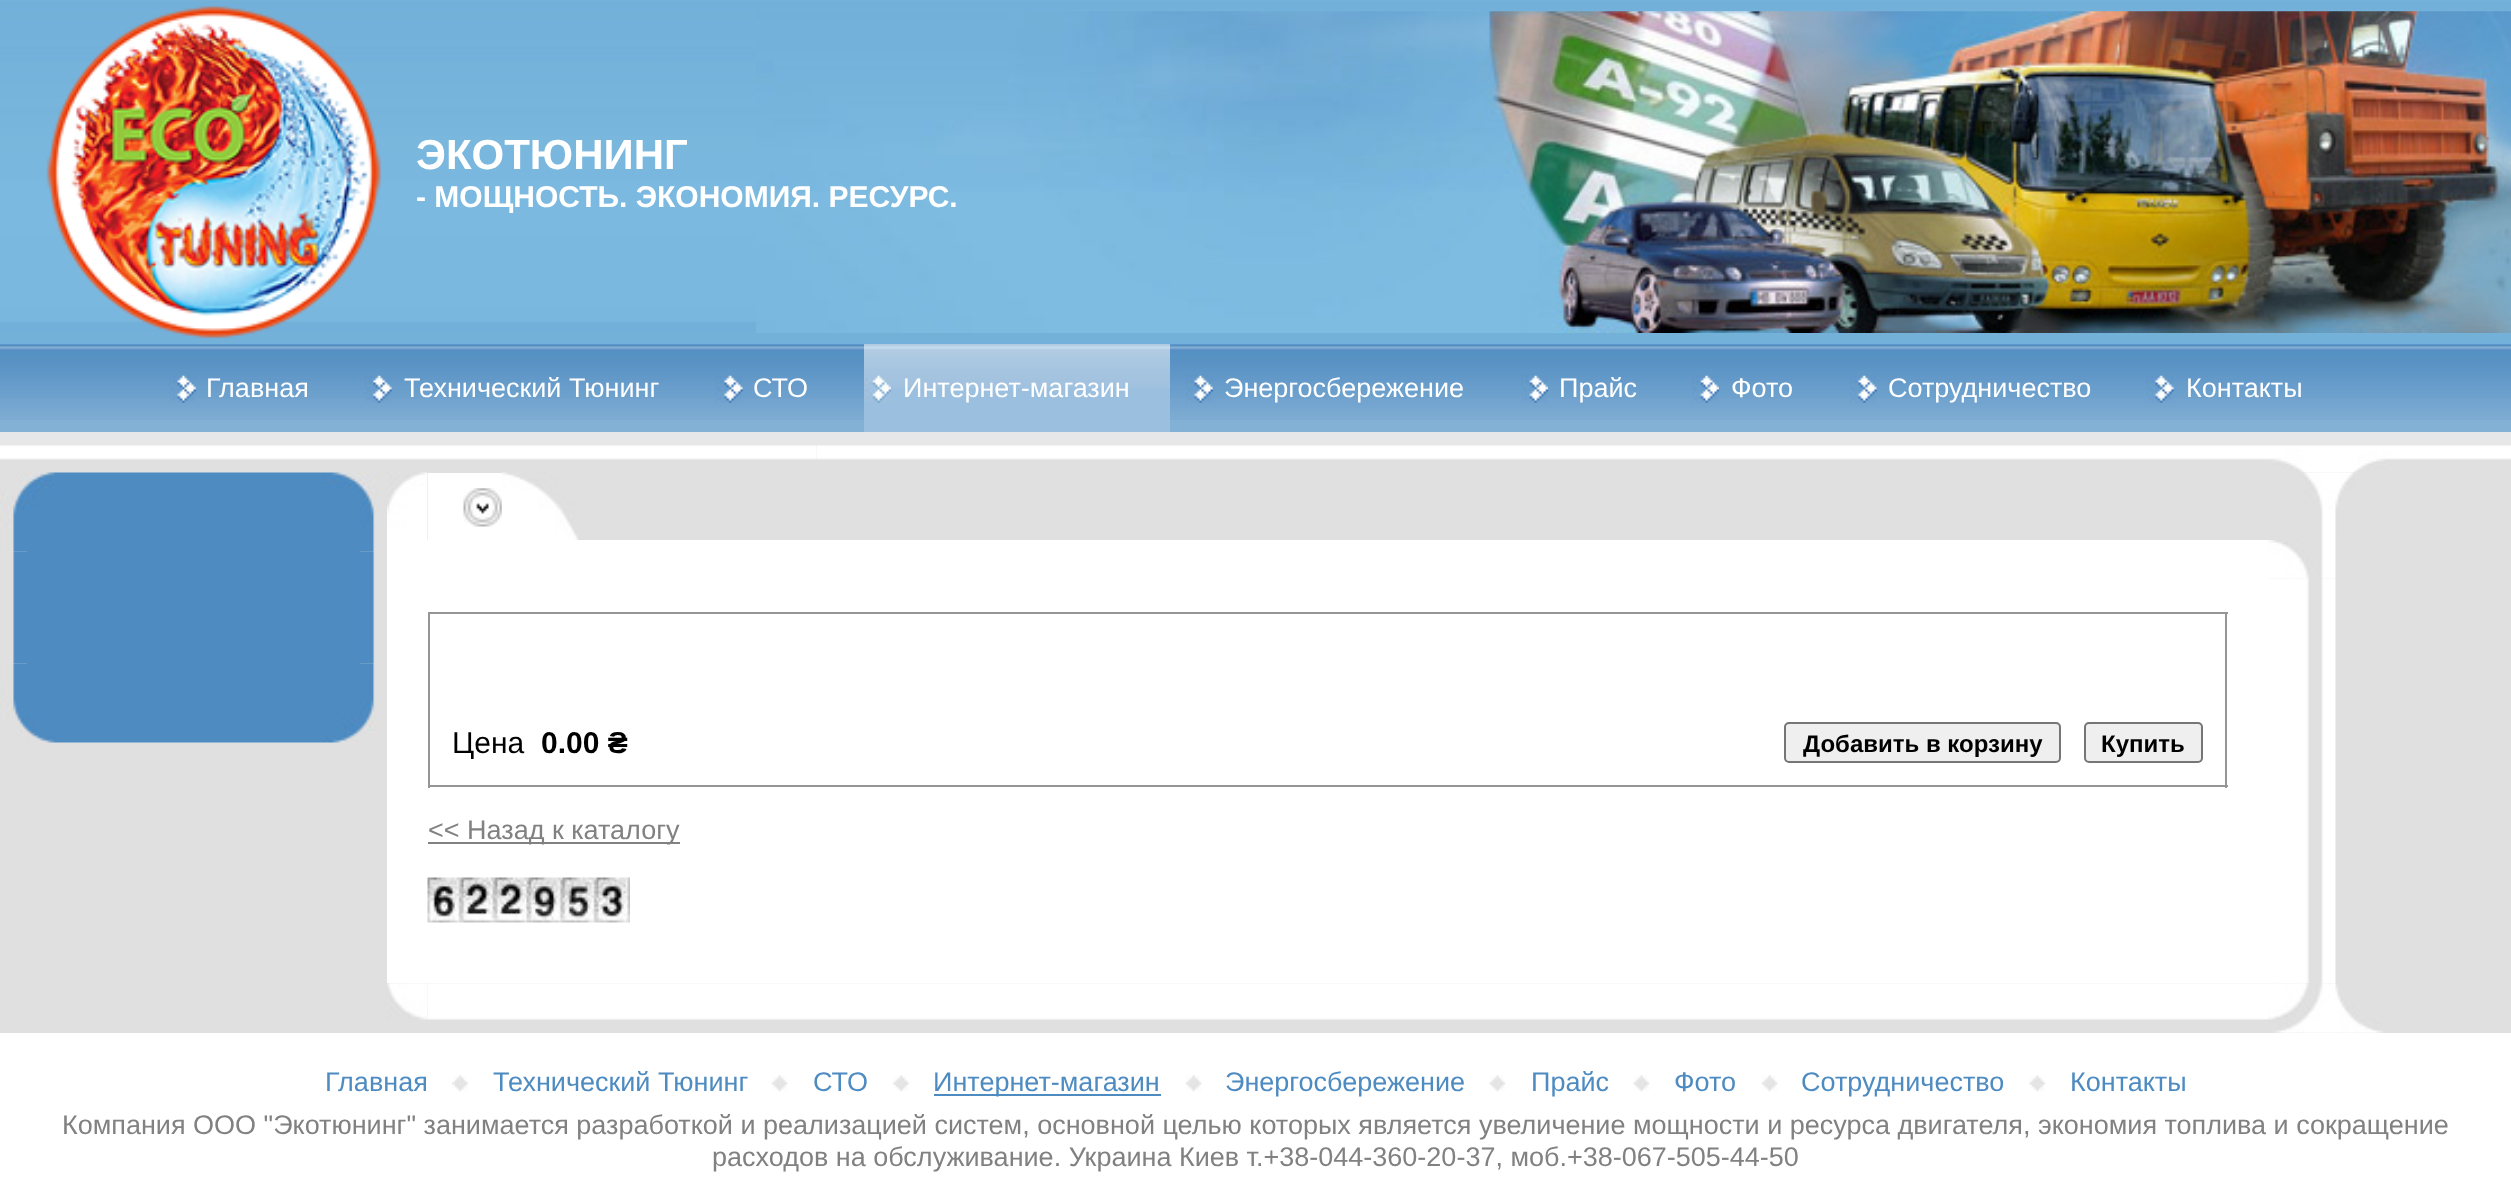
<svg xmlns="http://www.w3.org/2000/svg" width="2511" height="1185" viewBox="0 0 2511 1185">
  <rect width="100%" height="100%" fill="rgb(224,224,224)"/>
  <image x="0" y="0" width="2511" height="344" href="pic1.png"/>
  <image x="756" y="11" width="585" height="322" href="pic2.png"/>
  <image x="46" y="6" width="335" height="333" href="pic3.png"/>
  <text x="416" y="169" font-family="Liberation Sans" font-size="42" font-weight="bold" fill="rgb(255,255,255)">ЭКОТЮНИНГ</text>
  <text x="416" y="207" font-family="Liberation Sans" font-size="30" font-weight="bold" fill="rgb(255,255,255)">- МОЩНОСТЬ. ЭКОНОМИЯ. РЕСУРС.</text>
  <image x="1341" y="11" width="1170" height="322" href="pic4.png"/>
  <rect x="0" y="344" width="2511" height="88" fill="rgb(131,176,213)"/>
  <image x="0" y="344" width="2511" height="76" href="pic5.png"/>
  <image x="169" y="375" width="27" height="28" href="pic6.png"/>
  <text x="206" y="397" font-family="Liberation Sans" font-size="27" fill="rgb(255,255,255)">Главная</text>
  <image x="364" y="375" width="28" height="28" href="pic7.png"/>
  <text x="404" y="397" font-family="Liberation Sans" font-size="27" fill="rgb(255,255,255)">Технический Тюнинг</text>
  <image x="715" y="375" width="28" height="28" href="pic8.png"/>
  <text x="753" y="397" font-family="Liberation Sans" font-size="27" fill="rgb(255,255,255)">СТО</text>
  <rect x="864" y="344" width="306" height="88" fill="rgb(155,191,222)"/>
  <image x="864" y="344" width="27" height="32" href="pic9.png"/>
  <image x="864" y="375" width="27" height="28" href="pic10.png"/>
  <image x="1186" y="375" width="27" height="28" href="pic6.png"/>
  <text x="1224" y="397" font-family="Liberation Sans" font-size="27" fill="rgb(255,255,255)">Энергосбережение</text>
  <image x="1521" y="375" width="27" height="28" href="pic11.png"/>
  <text x="1559" y="397" font-family="Liberation Sans" font-size="27" fill="rgb(255,255,255)">Прайс</text>
  <image x="1692" y="375" width="27" height="28" href="pic11.png"/>
  <image x="1849" y="375" width="28" height="28" href="pic8.png"/>
  <image x="2146" y="375" width="28" height="28" href="pic8.png"/>
  <image x="891" y="344" width="279" height="44" href="pic12.png"/>
  <g font-family="Liberation Sans" font-size="27" fill="rgb(255,255,255)">
    <text x="903" y="397">Интернет-магазин</text>
    <text x="1731" y="397">Фото</text>
    <text x="1888" y="397">Сотрудничество</text>
    <text x="2186" y="397">Контакты</text>
  </g>
  <image x="0" y="432" width="817" height="28" href="pic13.png"/>
  <image x="817" y="432" width="1451" height="28" href="pic14.png"/>
  <image x="2268" y="432" width="243" height="41" href="pic15.png"/>
  <image x="0" y="472" width="378" height="80" href="pic16.png"/>
  <image x="13" y="551" width="14" height="113" href="pic17.png"/>
  <rect x="27" y="551" width="333" height="113" fill="rgb(78,139,193)"/>
  <image x="360" y="551" width="15" height="113" href="pic18.png"/>
  <image x="0" y="663" width="376" height="80" href="pic19.png"/>
  <image x="387" y="472" width="41" height="68" href="pic20.png"/>
  <rect x="428" y="473" width="74" height="67" fill="rgb(255,255,255)"/>
  <image x="463" y="488" width="39" height="39" href="pic21.png"/>
  <image x="502" y="472" width="77" height="68" href="pic22.png"/>
  <rect x="578" y="537" width="1" height="3" fill="rgb(224,224,224)"/>
  <rect x="387" y="540" width="1881" height="443" fill="rgb(255,255,255)"/>
  <rect x="428" y="612" width="1800" height="2" fill="rgb(150,150,150)"/>
  <rect x="2225" y="612" width="2" height="176" fill="rgb(150,150,150)"/>
  <rect x="428" y="785" width="1800" height="2" fill="rgb(150,150,150)"/>
  <rect x="428" y="612" width="2" height="176" fill="rgb(150,150,150)"/>
  <text x="452" y="753" font-family="Liberation Sans" font-size="30" fill="rgb(0,0,0)">Цена</text>
  <text x="541" y="753" font-family="Liberation Sans" font-size="30" font-weight="bold" fill="rgb(0,0,0)">0.00 ₴</text>
  <rect x="1785" y="723" width="275" height="39" rx="4" fill="rgb(239,239,239)" stroke="rgb(118,118,118)" stroke-width="2"/>
  <text x="1803" y="752" font-family="Liberation Sans" font-size="24" font-weight="bold" fill="rgb(0,0,0)">Добавить в корзину</text>
  <rect x="2085" y="723" width="117" height="39" rx="4" fill="rgb(239,239,239)" stroke="rgb(118,118,118)" stroke-width="2"/>
  <text x="2101" y="752" font-family="Liberation Sans" font-size="24" font-weight="bold" fill="rgb(0,0,0)">Купить</text>
  <rect x="428" y="842" width="252" height="2" fill="rgb(129,129,129)"/>
  <text x="428" y="839" font-family="Liberation Sans" font-size="27" fill="rgb(129,129,129)">&lt;&lt; Назад к каталогу</text>
  <image x="427" y="877" width="203" height="46" href="pic23.png"/>
  <image x="387" y="983" width="41" height="37" href="pic24.png"/>
  <image x="427" y="983" width="1841" height="37" href="pic25.png"/>
  <image x="2302" y="472" width="53" height="68" href="pic26.png"/>
  <image x="2268" y="540" width="68" height="39" href="pic27.png"/>
  <image x="2268" y="578" width="68" height="406" href="pic28.png"/>
  <image x="2268" y="983" width="115" height="50" href="pic29.png"/>
  <rect x="0" y="1033" width="2511" height="152" fill="rgb(255,255,255)"/>
  <text x="325" y="1091" font-family="Liberation Sans" font-size="27" fill="rgb(78,139,193)">Главная</text>
  <image x="452" y="1075" width="16" height="17" href="pic30.png"/>
  <text x="493" y="1091" font-family="Liberation Sans" font-size="27" fill="rgb(78,139,193)">Технический Тюнинг</text>
  <image x="771" y="1075" width="17" height="17" href="pic31.png"/>
  <text x="813" y="1091" font-family="Liberation Sans" font-size="27" fill="rgb(78,139,193)">СТО</text>
  <image x="893" y="1075" width="16" height="17" href="pic32.png"/>
  <rect x="934" y="1094" width="227" height="2" fill="rgb(78,139,193)"/>
  <text x="933" y="1091" font-family="Liberation Sans" font-size="27" fill="rgb(78,139,193)">Интернет-магазин</text>
  <image x="1185" y="1075" width="17" height="17" href="pic33.png"/>
  <text x="1225" y="1091" font-family="Liberation Sans" font-size="27" fill="rgb(78,139,193)">Энергосбережение</text>
  <image x="1489" y="1075" width="17" height="17" href="pic34.png"/>
  <text x="1531" y="1091" font-family="Liberation Sans" font-size="27" fill="rgb(78,139,193)">Прайс</text>
  <image x="1633" y="1075" width="17" height="17" href="pic34.png"/>
  <text x="1674" y="1091" font-family="Liberation Sans" font-size="27" fill="rgb(78,139,193)">Фото</text>
  <image x="1761" y="1075" width="17" height="17" href="pic33.png"/>
  <text x="1801" y="1091" font-family="Liberation Sans" font-size="27" fill="rgb(78,139,193)">Сотрудничество</text>
  <image x="2029" y="1075" width="17" height="17" href="pic35.png"/>
  <text x="2070" y="1091" font-family="Liberation Sans" font-size="27" fill="rgb(78,139,193)">Контакты</text>
  <g font-family="Liberation Sans" font-size="27" fill="rgb(129,129,129)">
    <text x="62" y="1134">Компания ООО "Экотюнинг" занимается разработкой и реализацией систем, основной целью которых является увеличение мощности и ресурса двигателя, экономия топлива и сокращение</text>
    <text x="712" y="1166">расходов на обслуживание. Украина Киев т.+38-044-360-20-37, моб.+38-067-505-44-50</text>
  </g>
</svg>
